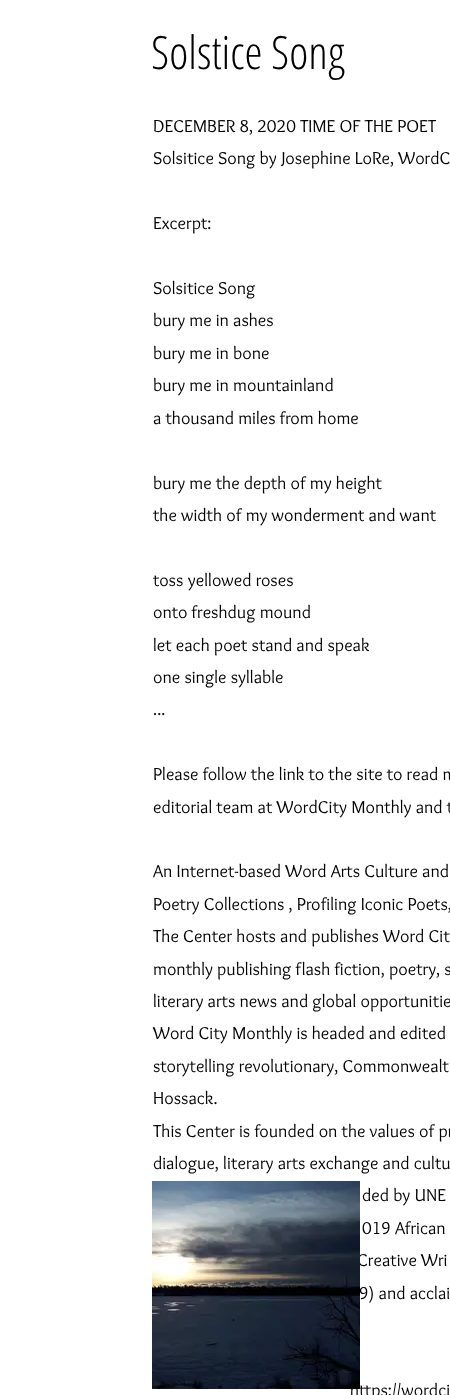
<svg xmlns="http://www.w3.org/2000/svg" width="450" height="1395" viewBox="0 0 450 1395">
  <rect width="100%" height="100%" fill="rgb(255,255,255)"/>
  <text x="151" y="69" font-family="Open Sans Condensed" font-size="46" font-weight="300" fill="rgb(0,0,0)">Solstice Song</text>
  <g font-family="Overlock" font-size="18" fill="rgb(0,0,0)">
    <text>
      <tspan x="153" y="132">DECEMBER 8, 2020 TIME OF THE POET</tspan>
      <tspan x="153" y="164">Solsitice Song by Josephine LoRe, WordC</tspan>
    </text>
    <text x="153" y="229">Excerpt:</text>
    <text>
      <tspan x="153" y="294">Solsitice Song</tspan>
      <tspan x="153" y="326">bury me in ashes</tspan>
      <tspan x="153" y="359">bury me in bone</tspan>
      <tspan x="153" y="391">bury me in mountainland</tspan>
      <tspan x="153" y="424">a thousand miles from home</tspan>
    </text>
    <text>
      <tspan x="153" y="489">bury me the depth of my height</tspan>
      <tspan x="153" y="521">the width of my wonderment and want</tspan>
    </text>
    <text>
      <tspan x="153" y="586">toss yellowed roses</tspan>
      <tspan x="153" y="618">onto freshdug mound</tspan>
      <tspan x="153" y="651">let each poet stand and speak</tspan>
      <tspan x="153" y="683">one single syllable</tspan>
      <tspan x="153" y="715">...</tspan>
    </text>
    <text>
      <tspan x="153" y="780">Please follow the link to the site to read m</tspan>
      <tspan x="153" y="813">editorial team at WordCity Monthly and t</tspan>
    </text>
    <text>
      <tspan x="153" y="877">An Internet-based Word Arts Culture and</tspan>
      <tspan x="153" y="910">Poetry Collections , Profiling Iconic Poets,</tspan>
      <tspan x="153" y="942">The Center hosts and publishes Word Cit</tspan>
      <tspan x="153" y="975">monthly publishing flash fiction, poetry, s</tspan>
      <tspan x="153" y="1007">literary arts news and global opportunitie</tspan>
      <tspan x="153" y="1039">Word City Monthly is headed and edited</tspan>
      <tspan x="153" y="1072">storytelling revolutionary, Commonwealt</tspan>
      <tspan x="153" y="1104">Hossack.</tspan>
      <tspan x="153" y="1137">This Center is founded on the values of pr</tspan>
      <tspan x="153" y="1169">dialogue, literary arts exchange and cultu</tspan>
    </text>
    <text>
      <tspan x="362" y="1201">ded by UNE</tspan>
      <tspan x="362" y="1234">019 African</tspan>
    </text>
    <text x="357" y="1266">Creative Wri</text>
    <text x="359" y="1299">9) and acclai</text>
    <text x="350" y="1396">https://wordci</text>
  </g>
  <image x="152" y="1181" width="208" height="208" href="pic1.png"/>
</svg>
